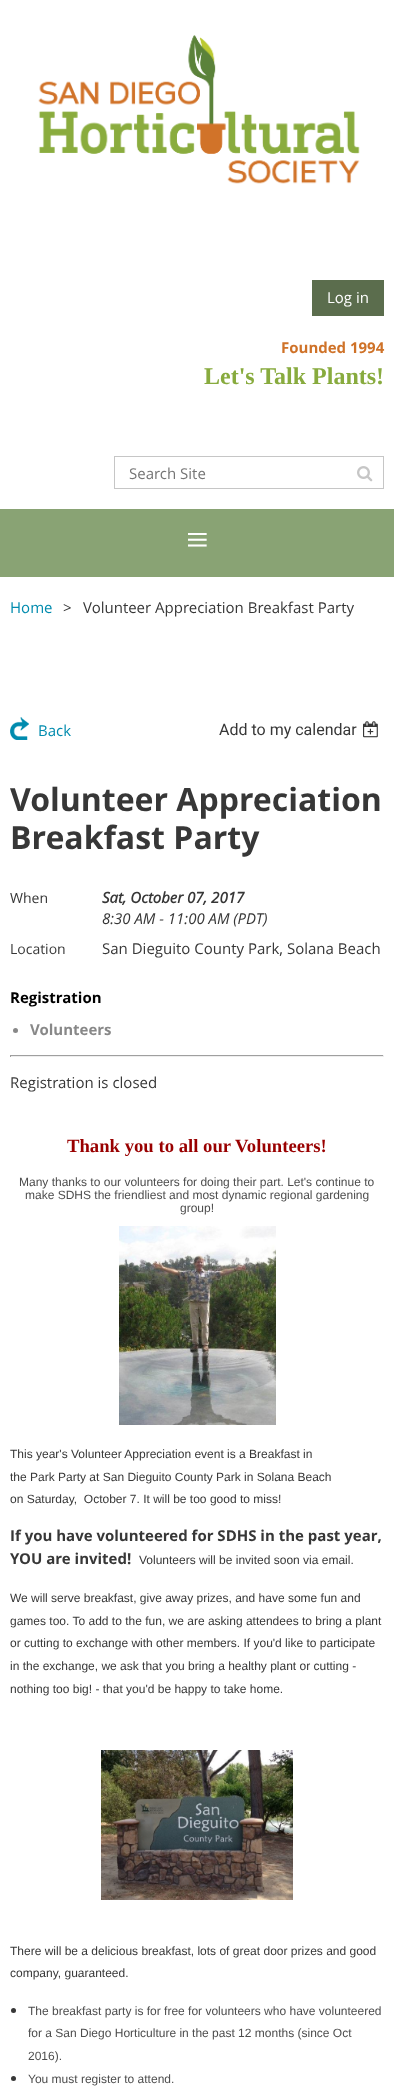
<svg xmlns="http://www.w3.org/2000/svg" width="394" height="2089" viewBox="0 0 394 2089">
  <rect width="100%" height="100%" fill="rgb(255,255,255)"/>
  <image x="38" y="35" width="322" height="149" href="pic1.png"/>
  <rect x="312" y="280" width="72" height="36" fill="rgb(91,109,77)"/>
  <text x="327" y="303" font-family="Open Sans" font-size="15" fill="rgb(255,255,255)">Log in</text>
  <text x="281" y="353" font-family="Open Sans" font-size="15" font-weight="bold" fill="rgb(207,114,40)">Founded 1994</text>
  <text x="204" y="384" font-family="Liberation Serif" font-size="24" font-weight="bold" fill="rgb(136,171,62)">Let's Talk Plants!</text>
  <rect x="114.5" y="456.5" width="269" height="32" fill="none" stroke="rgb(198,198,198)"/>
  <text x="129" y="479" font-family="Open Sans" font-size="15" fill="rgb(117,117,117)">Search Site</text>
  <image x="357" y="466" width="16" height="16" href="pic2.png"/>
  <rect x="0" y="509" width="394" height="68" fill="rgb(137,163,116)"/>
  <text x="186" y="553" font-family="Liberation Serif" font-size="40" fill="rgb(255,255,255)">≡</text>
  <text x="10" y="613" font-family="Open Sans" font-size="15" fill="rgb(0,139,174)">Home</text>
  <g font-family="Open Sans" font-size="15" fill="rgb(55,55,55)">
    <text x="63" y="613">&gt;</text>
    <text x="83" y="613">Volunteer Appreciation Breakfast Party</text>
  </g>
  <image x="10" y="717" width="19" height="23" href="pic3.png"/>
  <text x="38" y="736" font-family="Open Sans" font-size="15" fill="rgb(0,139,174)">Back</text>
  <text x="219" y="735" font-family="Roboto" font-size="16" fill="rgb(55,55,55)">Add to my calendar</text>
  <image x="363" y="721" width="15" height="17" href="pic4.png"/>
  <g font-family="Open Sans" font-size="32" font-weight="bold" fill="rgb(55,55,55)">
    <text>
      <tspan x="10" y="811">Volunteer Appreciation</tspan>
      <tspan x="10" y="849">Breakfast Party</tspan>
    </text>
  </g>
  <text x="10" y="903" font-family="Open Sans" font-size="14" fill="rgb(55,55,55)">When</text>
  <text x="102" y="903" font-family="Open Sans" font-size="15" font-weight="bold" font-style="italic" fill="rgb(55,55,55)">Sat, October 07, 2017</text>
  <text x="102" y="924" font-family="Open Sans" font-size="15" font-style="italic" fill="rgb(55,55,55)">8:30 AM - 11:00 AM (PDT)</text>
  <text x="10" y="954" font-family="Open Sans" font-size="14" fill="rgb(55,55,55)">Location</text>
  <text x="102" y="954" font-family="Open Sans" font-size="15" fill="rgb(55,55,55)">San Dieguito County Park, Solana Beach</text>
  <text x="10" y="1003" font-family="Open Sans" font-size="15" font-weight="bold" fill="rgb(0,0,0)">Registration</text>
  <circle cx="15.5" cy="1030.5" r="2.5" fill="rgb(136,136,136)"/>
  <text x="30" y="1035" font-family="Open Sans" font-size="15" font-weight="bold" fill="rgb(136,136,136)">Volunteers</text>
  <rect x="10" y="1055" width="374" height="1" fill="rgb(159,159,159)"/>
  <rect x="383" y="1055" width="1" height="2" fill="rgb(238,238,238)"/>
  <rect x="10" y="1056" width="374" height="1" fill="rgb(238,238,238)"/>
  <rect x="10" y="1055" width="1" height="2" fill="rgb(159,159,159)"/>
  <text x="10" y="1088" font-family="Open Sans" font-size="15" fill="rgb(55,55,55)">Registration is closed</text>
  <text x="67" y="1152" font-family="Liberation Serif" font-size="18.7" font-weight="bold" fill="rgb(153,0,0)">Thank you to all our Volunteers!</text>
  <g font-family="Liberation Sans" font-size="12" fill="rgb(77,77,77)">
    <text x="19" y="1186">Many thanks to our volunteers for doing their part. Let's continue to</text>
    <text x="25" y="1199">make SDHS the friendliest and most dynamic regional gardening</text>
    <text x="180" y="1212">group!</text>
  </g>
  <image x="119" y="1226" width="157" height="199" href="pic5.png"/>
  <g font-family="Liberation Sans" font-size="12" fill="rgb(55,55,55)">
    <text xml:space="preserve"><tspan x="10" y="1458">This year's Volunteer Appreciation event is a Breakfast in</tspan><tspan x="10" y="1481">the Park Party at San Dieguito County Park in Solana Beach</tspan><tspan x="10" y="1503">on Saturday,  October 7. It will be too good to miss!</tspan></text>
  </g>
  <g font-family="Open Sans" font-size="15" font-weight="bold" fill="rgb(55,55,55)">
    <text>
      <tspan x="10" y="1541">If you have volunteered for SDHS in the past year,</tspan>
      <tspan x="10" y="1564">YOU are invited!</tspan>
    </text>
  </g>
  <g font-family="Liberation Sans" font-size="12" fill="rgb(55,55,55)">
    <text x="139" y="1564">Volunteers will be invited soon via email.</text>
    <text>
      <tspan x="10" y="1602">We will serve breakfast, give away prizes, and have some fun and</tspan>
      <tspan x="10" y="1625">games too. To add to the fun, we are asking attendees to bring a plant</tspan>
      <tspan x="10" y="1647">or cutting to exchange with other members. If you'd like to participate</tspan>
      <tspan x="10" y="1670">in the exchange, we ask that you bring a healthy plant or cutting -</tspan>
      <tspan x="10" y="1693">nothing too big! - that you'd be happy to take home.</tspan>
    </text>
  </g>
  <image x="101" y="1750" width="192" height="150" href="pic6.png"/>
  <g font-family="Liberation Sans" font-size="12" fill="rgb(55,55,55)">
    <text>
      <tspan x="10" y="1955">There will be a delicious breakfast, lots of great door prizes and good</tspan>
      <tspan x="10" y="1977">company, guaranteed.</tspan>
    </text>
  </g>
  <circle cx="13.5" cy="2010.5" r="2.5" fill="rgb(55,55,55)"/>
  <g font-family="Liberation Sans" font-size="12" fill="rgb(77,77,77)">
    <text>
      <tspan x="28" y="2015">The breakfast party is for free for volunteers who have volunteered</tspan>
      <tspan x="28" y="2037">for a San Diego Horticulture in the past 12 months (since Oct</tspan>
      <tspan x="28" y="2060">2016).</tspan>
    </text>
  </g>
  <circle cx="13.5" cy="2078.5" r="2.5" fill="rgb(55,55,55)"/>
  <text x="28" y="2083" font-family="Liberation Sans" font-size="12" fill="rgb(77,77,77)">You must register to attend.</text>
</svg>
